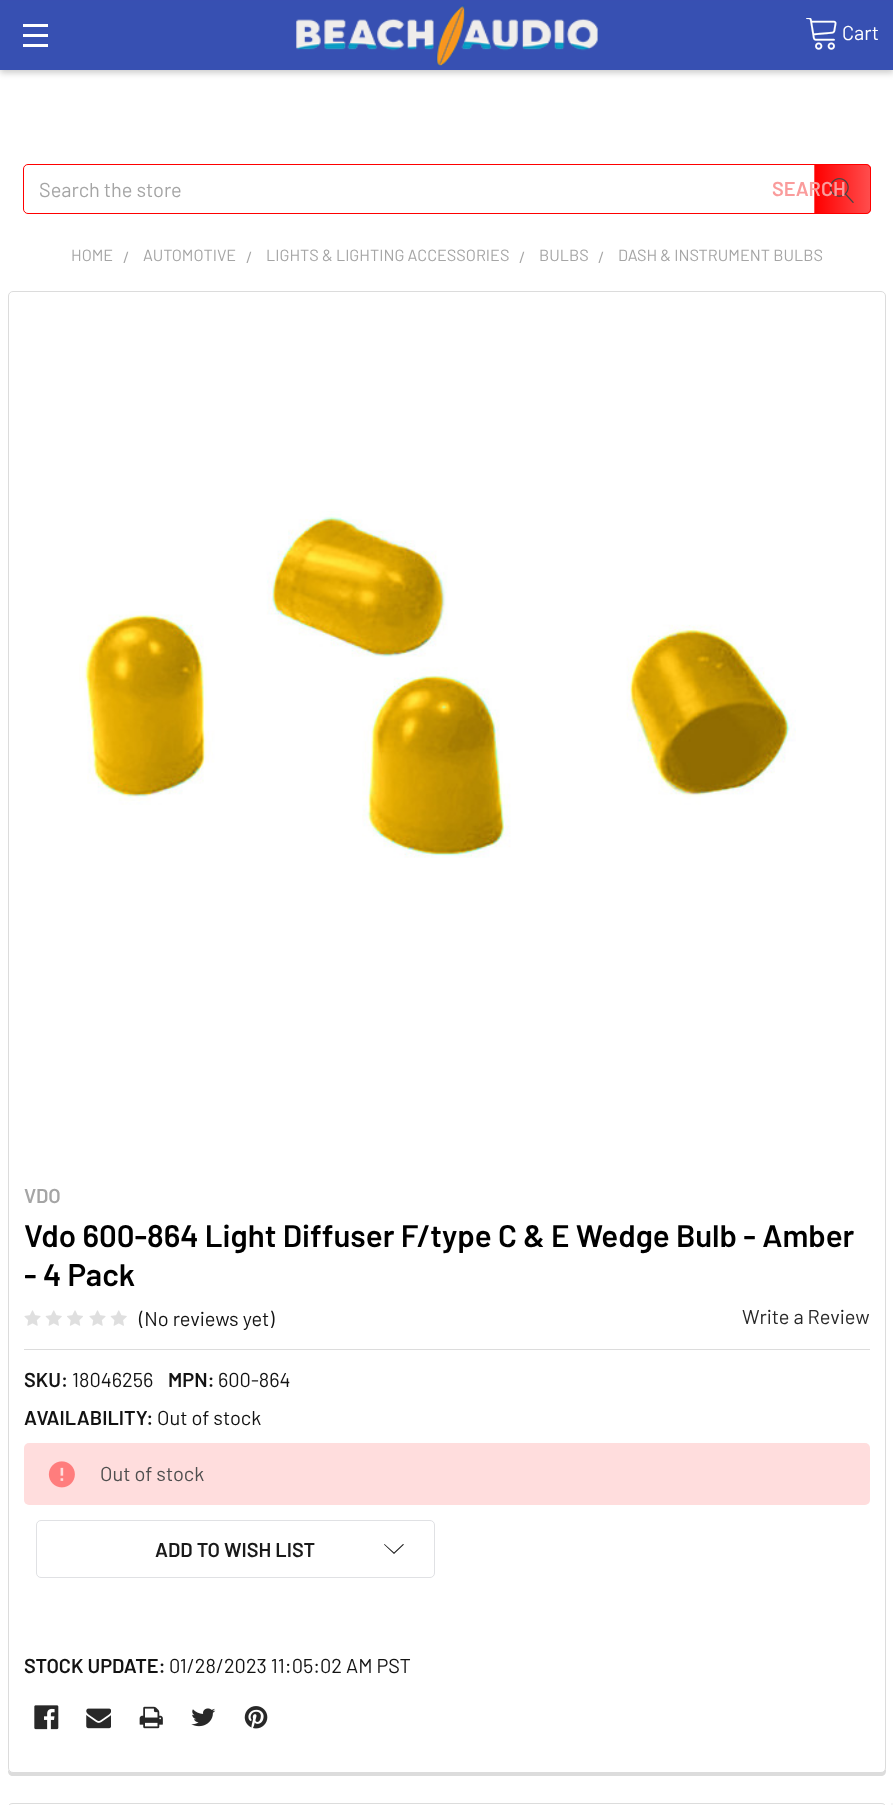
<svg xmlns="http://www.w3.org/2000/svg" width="893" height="1805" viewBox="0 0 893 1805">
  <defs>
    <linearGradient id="g1" gradientUnits="userSpaceOnUse" x1="760" y1="189" x2="815" y2="189"><stop offset="0" stop-color="rgb(255,0,0)"/><stop offset="1" stop-color="rgb(255,0,0)" stop-opacity="0.7"/></linearGradient>
    <clipPath id="clip1"><path d="M814 164H866C869 164 871 166 871 169V209C871 212 869 214 866 214H814Z"/></clipPath>
    <linearGradient id="g2" gradientUnits="userSpaceOnUse" x1="815" y1="189" x2="870" y2="189"><stop offset="0" stop-color="rgb(255,0,0)"/><stop offset="1" stop-color="rgb(255,0,0)" stop-opacity="0.7"/></linearGradient>
    <linearGradient id="g3" gradientUnits="userSpaceOnUse" x1="870" y1="189" x2="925" y2="189"><stop offset="0" stop-color="rgb(255,0,0)"/><stop offset="1" stop-color="rgb(255,0,0)" stop-opacity="0.7"/></linearGradient>
  </defs>
  <rect width="100%" height="100%" fill="rgb(255,255,255)"/>
  <rect x="0" y="3" width="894" height="70" fill="rgba(0,0,0,0.2)" filter="blur(3px)"/>
  <rect x="0" y="1" width="893" height="69" fill="rgb(55,80,178)"/>
  <rect x="0" y="0" width="893" height="1" fill="rgb(56,79,178)"/>
  <rect x="23" y="34" width="25" height="3" fill="rgb(255,255,255)"/>
  <rect x="23" y="24" width="25" height="3" fill="rgb(255,255,255)"/>
  <rect x="23" y="44" width="25" height="3" fill="rgb(255,255,255)"/>
  <image x="296" y="5" width="302" height="62" href="pic1.png"/>
  <image x="806" y="18" width="31" height="32" href="pic2.png"/>
  <text x="842" y="40" font-family="Barlow" font-size="20" fill="rgb(255,255,255)">Cart</text>
  <rect x="23.5" y="164.5" width="847" height="49" rx="4.5" fill="none" stroke="rgb(255,0,0)"/>
  <rect x="814" y="164" width="1" height="50" fill="url(#g1)"/>
  <g clip-path="url(#clip1)">
    <rect x="815" y="164" width="55" height="50" fill="url(#g2)"/>
    <rect x="870" y="164" width="1" height="50" fill="url(#g3)"/>
  </g>
  <image x="830" y="178" width="24" height="25" href="pic3.png"/>
  <text x="39" y="197" font-family="Barlow" font-size="20" fill="rgb(165,165,165)">Search the store</text>
  <text x="772" y="196" font-family="Barlow" font-size="20" font-weight="600" fill="rgb(250,156,156)">SEARCH</text>
  <g font-family="Barlow" font-size="16.25" fill="rgb(165,165,165)">
    <text x="71" y="261">HOME</text>
    <text x="123" y="263">/</text>
    <text x="143" y="261">AUTOMOTIVE</text>
    <text x="246" y="263">/</text>
    <text x="266" y="261">LIGHTS &amp; LIGHTING ACCESSORIES</text>
    <text x="519" y="263">/</text>
    <text x="539" y="261">BULBS</text>
    <text x="598" y="263">/</text>
    <text x="618" y="261">DASH &amp; INSTRUMENT BULBS</text>
  </g>
  <path d="M8 1770V1771C8 1774 10 1776 13 1776H881C884 1776 886 1774 886 1771V1769C885 1771 883 1772 881 1772H12C11 1772 9 1771 8 1770Z" fill="rgb(220,220,220)"/>
  <rect x="8.5" y="291.5" width="877" height="1481" rx="4.5" fill="rgb(255,255,255)" stroke="rgb(220,220,220)"/>
  <image x="79" y="511" width="717" height="347" href="pic4.png"/>
  <text x="24" y="1203" font-family="Barlow" font-size="20" font-weight="600" fill="rgb(165,165,165)">VDO</text>
  <g font-family="Barlow" font-size="31.25" font-weight="600" fill="rgb(0,0,0)">
    <text>
      <tspan x="24" y="1247">Vdo 600-864 Light Diffuser F/type C &amp; E Wedge Bulb - Amber</tspan>
      <tspan x="24" y="1286">- 4 Pack</tspan>
    </text>
  </g>
  <image x="24" y="1310" width="17" height="16" href="pic5.png"/>
  <image x="45" y="1310" width="17" height="16" href="pic6.png"/>
  <image x="67" y="1310" width="16" height="16" href="pic7.png"/>
  <image x="89" y="1310" width="17" height="16" href="pic5.png"/>
  <image x="110" y="1310" width="17" height="16" href="pic6.png"/>
  <text x="139" y="1326" font-family="Barlow" font-size="20" fill="rgb(19,19,19)">(No reviews yet)</text>
  <text x="742" y="1324" font-family="Barlow" font-size="20" fill="rgb(40,40,40)">Write a Review</text>
  <rect x="24" y="1349" width="846" height="1" fill="rgb(220,220,220)"/>
  <text x="24" y="1387" font-family="Barlow" font-size="20" font-weight="600" fill="rgb(19,19,19)">SKU:</text>
  <text x="72" y="1387" font-family="Barlow" font-size="20" fill="rgb(19,19,19)">18046256</text>
  <text x="168" y="1387" font-family="Barlow" font-size="20" font-weight="600" fill="rgb(19,19,19)">MPN:</text>
  <text x="218" y="1387" font-family="Barlow" font-size="20" fill="rgb(19,19,19)">600-864</text>
  <text x="24" y="1425" font-family="Barlow" font-size="20" font-weight="600" fill="rgb(19,19,19)">AVAILABILITY:</text>
  <text x="157" y="1425" font-family="Barlow" font-size="20" fill="rgb(19,19,19)">Out of stock</text>
  <rect x="24" y="1443" width="846" height="62" rx="5" fill="rgb(255,221,221)"/>
  <image x="48" y="1461" width="27" height="27" href="pic8.png"/>
  <text x="100" y="1481" font-family="Barlow" font-size="20" fill="rgb(79,79,79)">Out of stock</text>
  <rect x="36.5" y="1520.5" width="398" height="57" rx="4.5" fill="none" stroke="rgb(224,225,228)"/>
  <text x="155" y="1557" font-family="Barlow" font-size="20" font-weight="600" fill="rgb(26,26,26)">ADD TO WISH LIST</text>
  <path d="M394 1552.5L403 1544L404 1544.5L394 1554L384 1544.5L384.5 1544Z" fill="rgb(26,26,26)" fill-rule="evenodd"/>
  <text x="24" y="1673" font-family="Barlow" font-size="20" font-weight="600" fill="rgb(19,19,19)">STOCK UPDATE:</text>
  <text x="169" y="1673" font-family="Barlow" font-size="20" fill="rgb(19,19,19)">01/28/2023 11:05:02 AM PST</text>
  <image x="34" y="1705" width="25" height="25" href="pic9.png"/>
  <image x="86" y="1708" width="25" height="21" href="pic10.png"/>
  <image x="139" y="1706" width="24" height="23" href="pic11.png"/>
  <image x="191" y="1708" width="25" height="19" href="pic12.png"/>
  <image x="244" y="1706" width="24" height="23" href="pic13.png"/>
  <rect x="8.5" y="1803.5" width="877" height="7" rx="4.5" fill="none" stroke="rgb(220,220,220)"/>
  <rect x="891" y="1803" width="2" height="2" fill="rgb(245,245,245)"/>
</svg>
